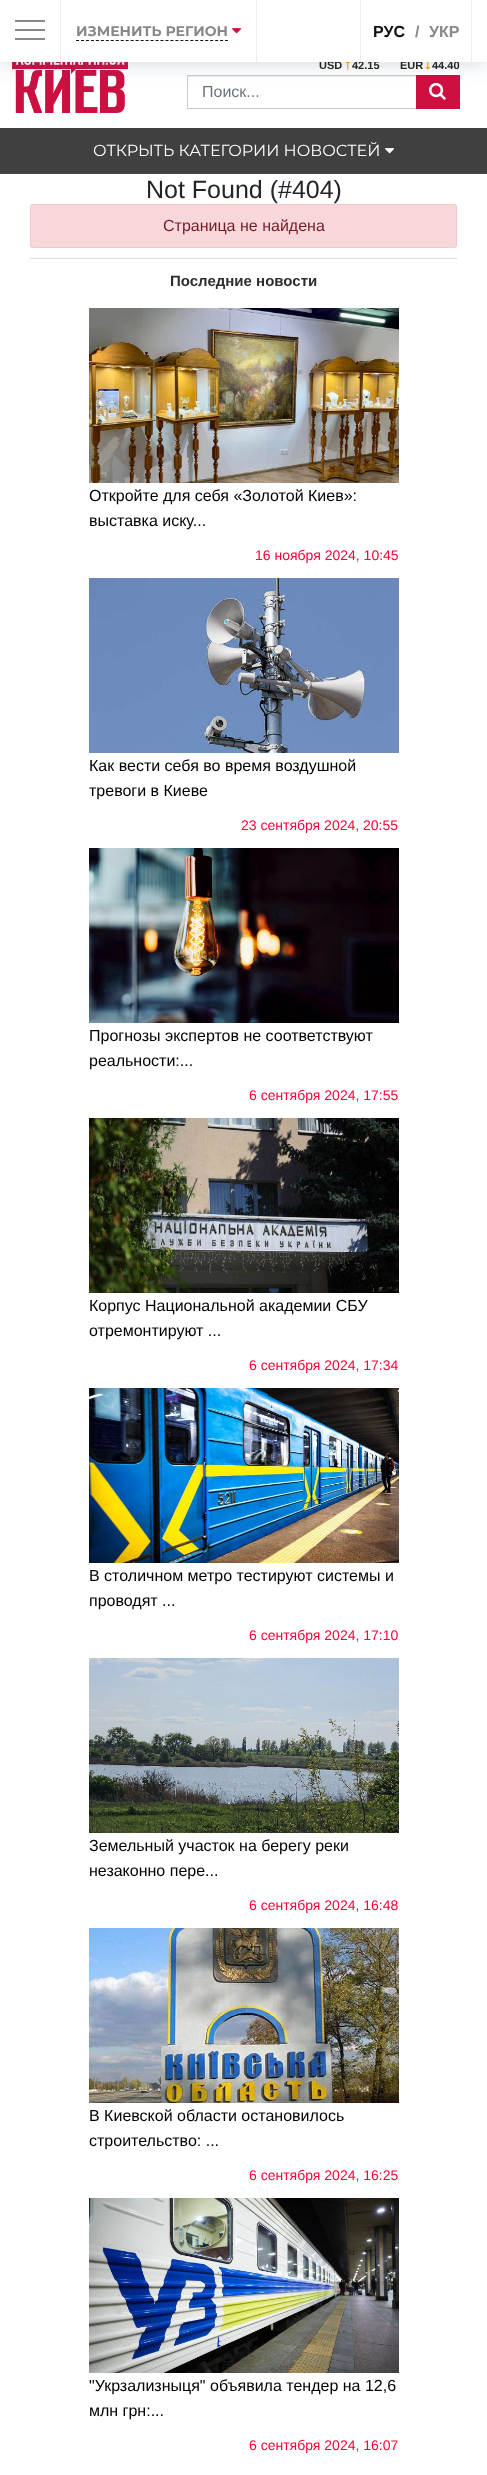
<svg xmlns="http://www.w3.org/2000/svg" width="487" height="2475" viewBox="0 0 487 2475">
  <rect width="100%" height="100%" fill="rgb(255,255,255)"/>
  <image x="12" y="62" width="116" height="51" href="pic2.png"/>
  <image x="345" y="62" width="6" height="8" href="pic3.png"/>
  <image x="425" y="62" width="6" height="8" href="pic4.png"/>
  <rect x="188" y="76" width="228" height="1" fill="rgb(236,236,236)"/>
  <rect x="187.5" y="75.5" width="272" height="33" fill="none" stroke="rgb(204,204,204)"/>
  <rect x="416" y="75" width="44" height="34" fill="rgb(206,16,65)"/>
  <image x="429" y="83" width="17" height="17" href="pic5.png"/>
  <rect x="0" y="0" width="487" height="62" fill="rgba(62,83,117,0.25)" filter="blur(10.5px)"/>
  <g font-family="Liberation Sans" font-size="11" font-weight="bold" fill="rgb(33,37,41)">
    <text x="319" y="69">USD</text>
    <text x="352" y="69">42.15</text>
    <text x="400" y="69">EUR</text>
    <text x="432" y="69">44.40</text>
  </g>
  <rect x="0" y="0" width="487" height="62" fill="rgb(255,255,255)"/>
  <rect x="15" y="29" width="30" height="2" fill="rgb(136,136,136)"/>
  <rect x="15" y="20" width="30" height="2" fill="rgb(136,136,136)"/>
  <rect x="15" y="38" width="30" height="2" fill="rgb(136,136,136)"/>
  <rect x="256" y="0" width="1" height="62" fill="rgb(238,238,238)"/>
  <rect x="60" y="0" width="1" height="62" fill="rgb(238,238,238)"/>
  <path d="M76 40.5H228" fill="none" stroke="rgb(17,17,17)" stroke-dasharray="3 1.97"/>
  <text x="76" y="36" font-family="Montserrat" font-size="14" font-weight="bold" fill="rgb(136,136,136)">ИЗМЕНИТЬ РЕГИОН</text>
  <image x="232" y="28" width="10" height="6" href="pic1.png"/>
  <rect x="471" y="0" width="1" height="62" fill="rgb(238,238,238)"/>
  <rect x="360" y="0" width="1" height="62" fill="rgb(238,238,238)"/>
  <text x="373" y="37" font-family="Liberation Sans" font-size="16" font-weight="bold" fill="rgb(17,17,17)">РУС</text>
  <g font-family="Liberation Sans" font-size="16" font-weight="bold" fill="rgb(136,136,136)">
    <text x="415" y="37">/</text>
    <text x="429" y="37">УКР</text>
  </g>
  <text x="202" y="97" font-family="Liberation Sans" font-size="16" fill="rgb(108,117,125)">Поиск...</text>
  <rect x="0" y="128" width="487" height="45" fill="rgb(64,64,64)"/>
  <text x="93" y="156" font-family="Montserrat" font-size="16" fill="rgb(255,255,255)">ОТКРЫТЬ КАТЕГОРИИ НОВОСТЕЙ</text>
  <image x="385" y="148" width="10" height="6" href="pic6.png"/>
  <rect x="0" y="173" width="487" height="1" fill="rgb(74,74,74)"/>
  <text x="146" y="198" font-family="Liberation Sans" font-size="25" fill="rgb(33,37,41)">Not Found (#404)</text>
  <rect x="30.5" y="204.5" width="426" height="43" rx="2" fill="rgb(248,215,218)" stroke="rgb(245,198,203)"/>
  <text x="163" y="231" font-family="Liberation Sans" font-size="16" fill="rgb(114,28,36)">Страница не найдена</text>
  <rect x="30" y="258" width="427" height="1" fill="rgb(221,221,221)"/>
  <text x="170" y="286" font-family="Liberation Sans" font-size="15" font-weight="bold" fill="rgb(44,45,49)">Последние новости</text>
  <image x="89" y="308" width="310" height="175" href="pic7.png"/>
  <g font-family="Liberation Sans" font-size="16" fill="rgb(0,0,0)">
    <text>
      <tspan x="89" y="501">Откройте для себя «Золотой Киев»:</tspan>
      <tspan x="89" y="526">выставка иску...</tspan>
    </text>
  </g>
  <text x="255" y="560" font-family="Liberation Sans" font-size="14" fill="rgb(255,0,55)">16 ноября 2024, 10:45</text>
  <image x="89" y="578" width="310" height="175" href="pic8.png"/>
  <g font-family="Liberation Sans" font-size="16" fill="rgb(0,0,0)">
    <text>
      <tspan x="89" y="771">Как вести себя во время воздушной</tspan>
      <tspan x="89" y="796">тревоги в Киеве</tspan>
    </text>
  </g>
  <text x="241" y="830" font-family="Liberation Sans" font-size="14" fill="rgb(255,0,55)">23 сентября 2024, 20:55</text>
  <image x="89" y="848" width="310" height="175" href="pic9.png"/>
  <g font-family="Liberation Sans" font-size="16" fill="rgb(0,0,0)">
    <text>
      <tspan x="89" y="1041">Прогнозы экспертов не соответствуют</tspan>
      <tspan x="89" y="1066">реальности:...</tspan>
    </text>
  </g>
  <text x="249" y="1100" font-family="Liberation Sans" font-size="14" fill="rgb(255,0,55)">6 сентября 2024, 17:55</text>
  <image x="89" y="1118" width="310" height="175" href="pic10.png"/>
  <g font-family="Liberation Sans" font-size="16" fill="rgb(0,0,0)">
    <text>
      <tspan x="89" y="1311">Корпус Национальной академии СБУ</tspan>
      <tspan x="89" y="1336">отремонтируют ...</tspan>
    </text>
  </g>
  <text x="249" y="1370" font-family="Liberation Sans" font-size="14" fill="rgb(255,0,55)">6 сентября 2024, 17:34</text>
  <image x="89" y="1388" width="310" height="175" href="pic11.png"/>
  <g font-family="Liberation Sans" font-size="16" fill="rgb(0,0,0)">
    <text>
      <tspan x="89" y="1581">В столичном метро тестируют системы и</tspan>
      <tspan x="89" y="1606">проводят ...</tspan>
    </text>
  </g>
  <text x="249" y="1640" font-family="Liberation Sans" font-size="14" fill="rgb(255,0,55)">6 сентября 2024, 17:10</text>
  <image x="89" y="1658" width="310" height="175" href="pic12.png"/>
  <g font-family="Liberation Sans" font-size="16" fill="rgb(0,0,0)">
    <text>
      <tspan x="89" y="1851">Земельный участок на берегу реки</tspan>
      <tspan x="89" y="1876">незаконно пере...</tspan>
    </text>
  </g>
  <text x="249" y="1910" font-family="Liberation Sans" font-size="14" fill="rgb(255,0,55)">6 сентября 2024, 16:48</text>
  <image x="89" y="1928" width="310" height="175" href="pic13.png"/>
  <g font-family="Liberation Sans" font-size="16" fill="rgb(0,0,0)">
    <text>
      <tspan x="89" y="2121">В Киевской области остановилось</tspan>
      <tspan x="89" y="2146">строительство: ...</tspan>
    </text>
  </g>
  <text x="249" y="2180" font-family="Liberation Sans" font-size="14" fill="rgb(255,0,55)">6 сентября 2024, 16:25</text>
  <image x="89" y="2198" width="310" height="175" href="pic14.png"/>
  <g font-family="Liberation Sans" font-size="16" fill="rgb(0,0,0)">
    <text>
      <tspan x="89" y="2391">"Укрзализныця" объявила тендер на 12,6</tspan>
      <tspan x="89" y="2416">млн грн:...</tspan>
    </text>
  </g>
  <text x="249" y="2450" font-family="Liberation Sans" font-size="14" fill="rgb(255,0,55)">6 сентября 2024, 16:07</text>
</svg>
